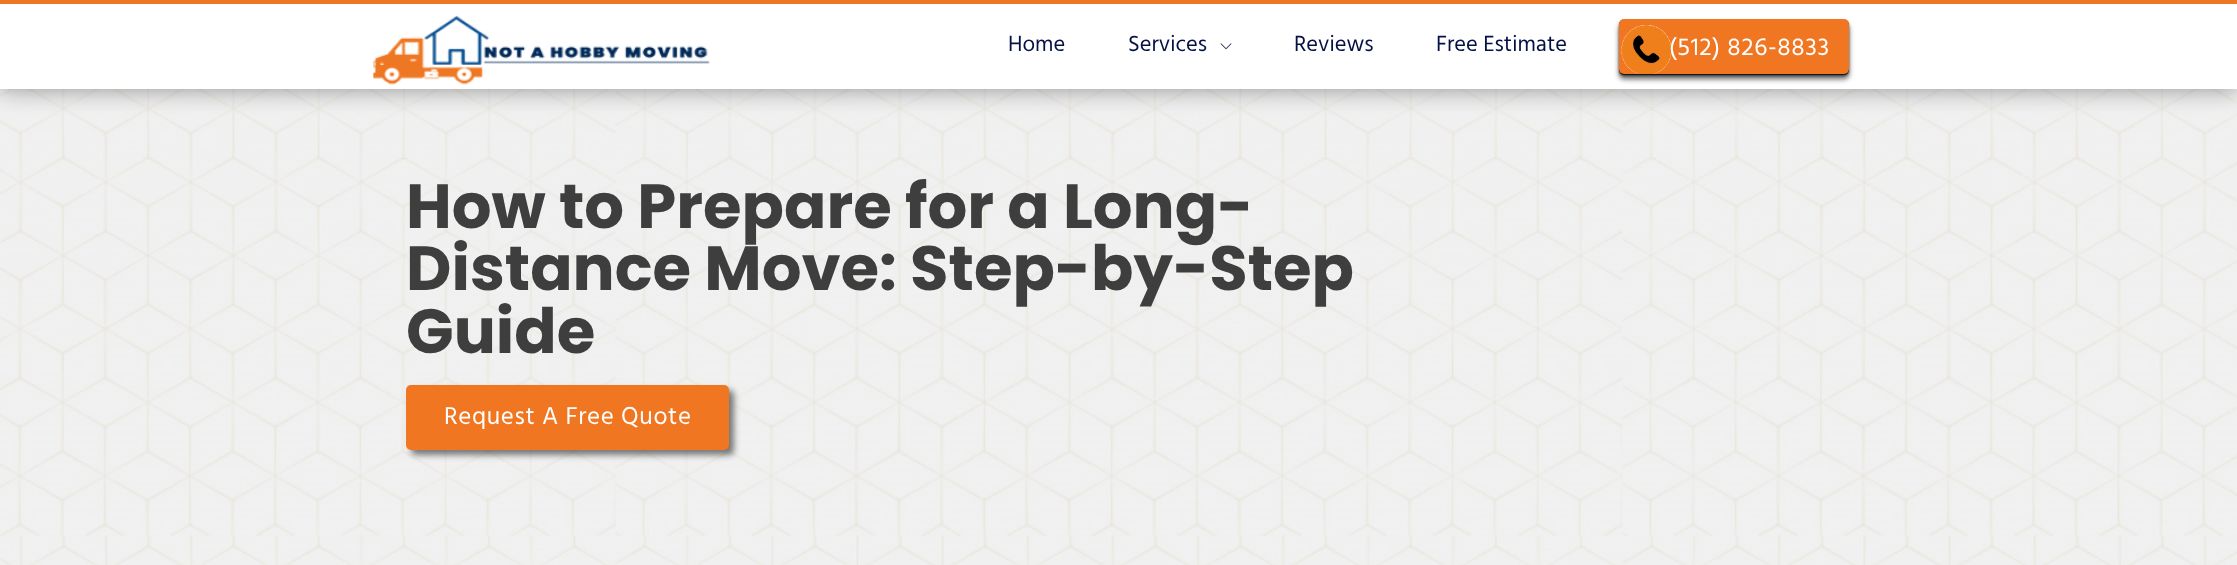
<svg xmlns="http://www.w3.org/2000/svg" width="2237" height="565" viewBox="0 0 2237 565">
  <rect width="100%" height="100%" fill="rgb(255,255,255)"/>
  <image x="0" y="89" width="2237" height="476" href="pic4.png"/>
  <rect x="0" y="0" width="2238" height="89" fill="rgba(0,0,0,0.4)" filter="blur(12.5px)"/>
  <rect x="0" y="0" width="2237" height="4" fill="rgb(238,119,35)"/>
  <rect x="0" y="4" width="2237" height="85" fill="rgb(255,255,255)"/>
  <image x="373" y="15" width="337" height="70" href="pic1.png"/>
  <g font-family="Hind" font-size="22.5" fill="rgb(5,17,69)">
    <text x="1008" y="51">Home</text>
    <text x="1128" y="51">Services</text>
  </g>
  <image x="1220" y="43" width="12" height="7" href="pic2.png"/>
  <g font-family="Hind" font-size="22.5" fill="rgb(5,17,69)">
    <text x="1294" y="51">Reviews</text>
    <text x="1436" y="51">Free Estimate</text>
  </g>
  <rect x="1619" y="20" width="230" height="55" rx="5" fill="rgba(0,0,0,0.3)" filter="blur(0.5px)"/>
  <rect x="1619" y="25" width="230" height="55" rx="5" fill="rgba(0,0,0,0.1)" filter="blur(3px)"/>
  <rect x="1619" y="24" width="230" height="55" rx="5" fill="rgba(0,0,0,0.5)" filter="blur(2.5px)"/>
  <rect x="1619" y="21" width="230" height="55" rx="5" fill="rgba(0,0,0,0.5)" filter="blur(1px)"/>
  <rect x="1619" y="20" width="230" height="55" rx="5" fill="rgba(0,0,0,0.5)" filter="blur(0.5px)"/>
  <rect x="1619" y="19" width="230" height="55" rx="5" fill="rgb(240,118,34)"/>
  <image x="1621" y="25" width="51" height="49" href="pic3.png"/>
  <text x="1669" y="55" font-family="Hind" font-size="25" letter-spacing="0.6" fill="rgb(255,255,255)">(512) 826-8833</text>
  <g font-family="Poppins" font-size="62.5" font-weight="bold" fill="rgb(62,62,62)">
    <text>
      <tspan x="406" y="228">How to Prepare for a Long-</tspan>
      <tspan x="406" y="290">Distance Move: Step-by-Step</tspan>
      <tspan x="406" y="353">Guide</tspan>
    </text>
  </g>
  <rect x="411" y="390" width="323" height="65" rx="5" fill="rgba(0,0,0,0.5)" filter="blur(3px)"/>
  <rect x="406" y="385" width="323" height="65" rx="5" fill="rgb(240,118,34)"/>
  <text x="444" y="424" font-family="Hind" font-size="25" letter-spacing="0.6" fill="rgb(255,255,255)">Request A Free Quote</text>
</svg>
